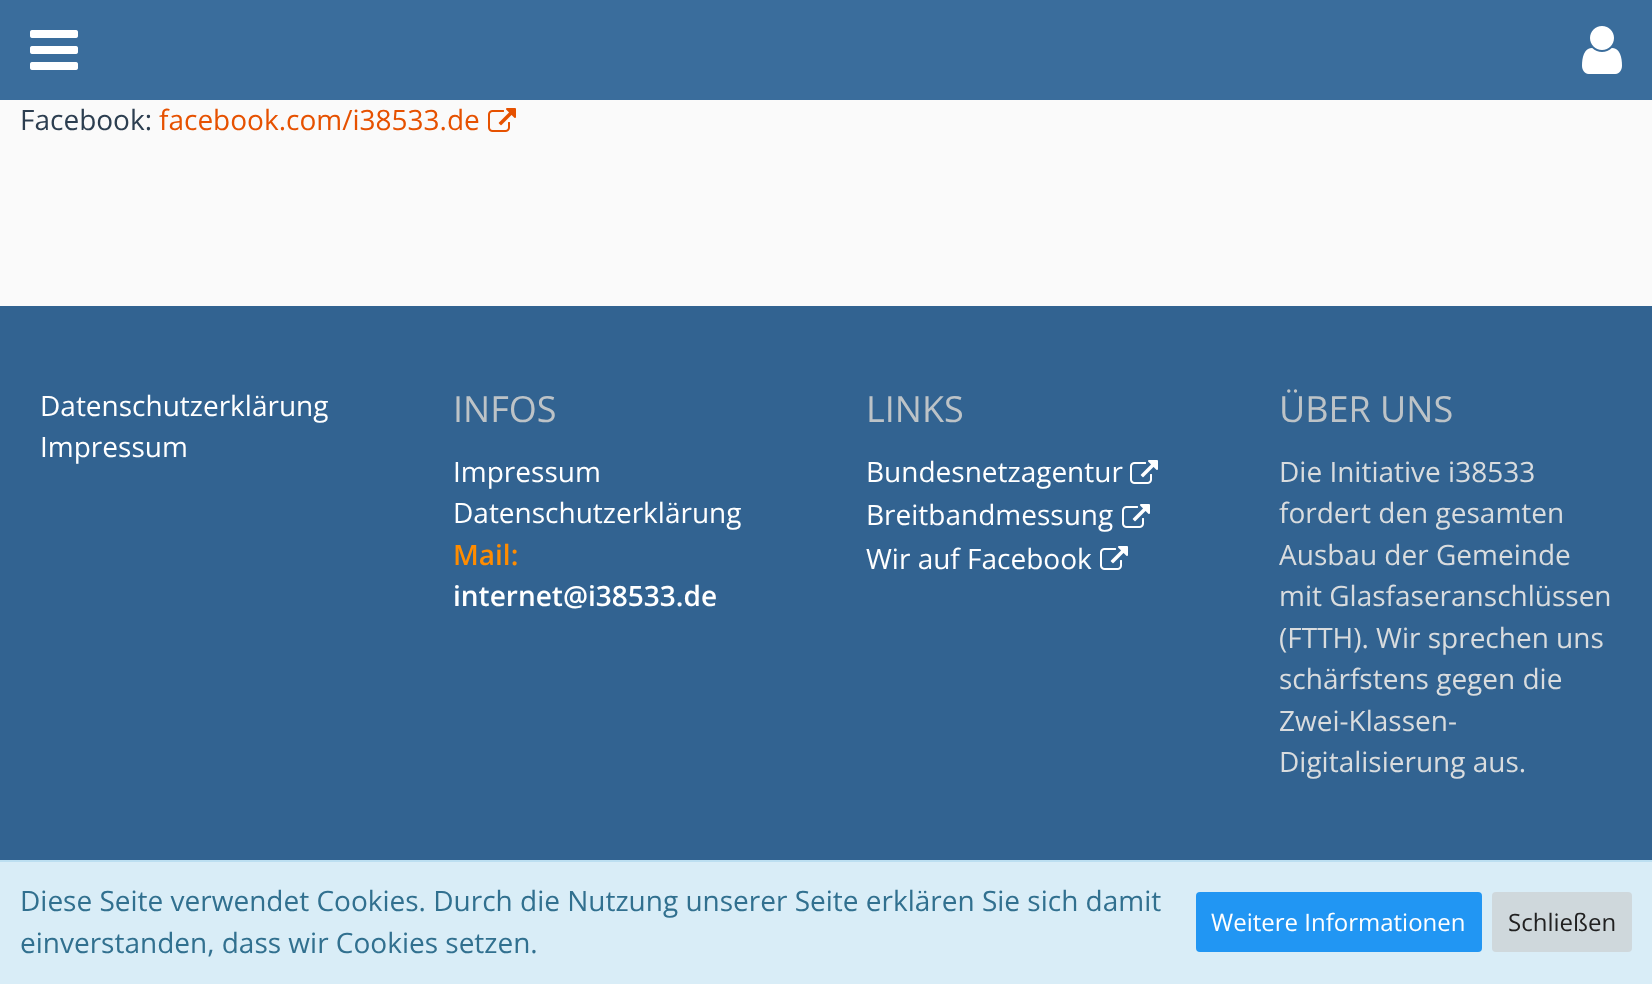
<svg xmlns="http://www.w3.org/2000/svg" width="1652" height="984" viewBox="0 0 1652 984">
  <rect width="100%" height="100%" fill="rgb(250,250,250)"/>
  <rect x="0" y="0" width="1652" height="100" fill="rgb(58,109,156)"/>
  <image x="30" y="30" width="48" height="40" href="pic1.png"/>
  <image x="1582" y="26" width="40" height="48" href="pic2.png"/>
  <text x="20" y="130" font-family="Open Sans" font-size="28" fill="rgb(44,62,80)">Facebook:</text>
  <text x="159" y="130" font-family="Open Sans" font-size="28" fill="rgb(230,81,0)">facebook.com/i38533.de</text>
  <image x="488" y="108" width="28" height="24" href="pic3.png"/>
  <rect x="0" y="306" width="1652" height="554" fill="rgb(50,99,145)"/>
  <g font-family="Open Sans" font-size="28" fill="rgb(255,255,255)">
    <text>
      <tspan x="40" y="416">Datenschutzerklärung</tspan>
      <tspan x="40" y="457">Impressum</tspan>
    </text>
  </g>
  <text x="453" y="422" font-family="Open Sans" font-size="36" fill="rgb(189,195,199)">INFOS</text>
  <g font-family="Open Sans" font-size="28" fill="rgb(255,255,255)">
    <text>
      <tspan x="453" y="482">Impressum</tspan>
      <tspan x="453" y="523">Datenschutzerklärung</tspan>
    </text>
  </g>
  <text x="453" y="565" font-family="Open Sans" font-size="28" font-weight="600" fill="rgb(255,140,0)">Mail:</text>
  <text x="453" y="606" font-family="Open Sans" font-size="28" font-weight="600" fill="rgb(255,255,255)">internet@i38533.de</text>
  <text x="866" y="422" font-family="Open Sans" font-size="36" fill="rgb(189,195,199)">LINKS</text>
  <text x="866" y="482" font-family="Open Sans" font-size="28" fill="rgb(255,255,255)">Bundesnetzagentur</text>
  <image x="1130" y="460" width="28" height="24" href="pic4.png"/>
  <text x="866" y="525" font-family="Open Sans" font-size="28" fill="rgb(255,255,255)">Breitbandmessung</text>
  <image x="1122" y="504" width="28" height="24" href="pic4.png"/>
  <text x="866" y="569" font-family="Open Sans" font-size="28" fill="rgb(255,255,255)">Wir auf Facebook</text>
  <image x="1100" y="546" width="28" height="24" href="pic4.png"/>
  <text x="1279" y="422" font-family="Open Sans" font-size="36" fill="rgb(189,195,199)">ÜBER UNS</text>
  <g font-family="Open Sans" font-size="28" fill="rgb(217,220,222)">
    <text>
      <tspan x="1279" y="482">Die Initiative i38533</tspan>
      <tspan x="1279" y="523">fordert den gesamten</tspan>
      <tspan x="1279" y="565">Ausbau der Gemeinde</tspan>
      <tspan x="1279" y="606">mit Glasfaseranschlüssen</tspan>
      <tspan x="1279" y="648">(FTTH). Wir sprechen uns</tspan>
      <tspan x="1279" y="689">schärfstens gegen die</tspan>
      <tspan x="1279" y="731">Zwei-Klassen-</tspan>
      <tspan x="1279" y="772">Digitalisierung aus.</tspan>
    </text>
  </g>
  <rect x="0" y="862" width="1652" height="122" fill="rgb(217,237,247)"/>
  <rect x="0" y="860" width="1652" height="2" fill="rgb(188,223,241)"/>
  <g font-family="Open Sans" font-size="28" fill="rgb(49,112,143)">
    <text>
      <tspan x="20" y="911">Diese Seite verwendet Cookies. Durch die Nutzung unserer Seite erklären Sie sich damit</tspan>
      <tspan x="20" y="953">einverstanden, dass wir Cookies setzen.</tspan>
    </text>
  </g>
  <rect x="1196" y="892" width="286" height="60" rx="4" fill="rgb(33,150,243)"/>
  <text x="1211" y="931" font-family="Open Sans" font-size="24" fill="rgb(255,255,255)">Weitere Informationen</text>
  <rect x="1492" y="892" width="140" height="60" rx="4" fill="rgb(207,216,220)"/>
  <text x="1508" y="931" font-family="Open Sans" font-size="24" fill="rgb(33,33,33)">Schließen</text>
</svg>
